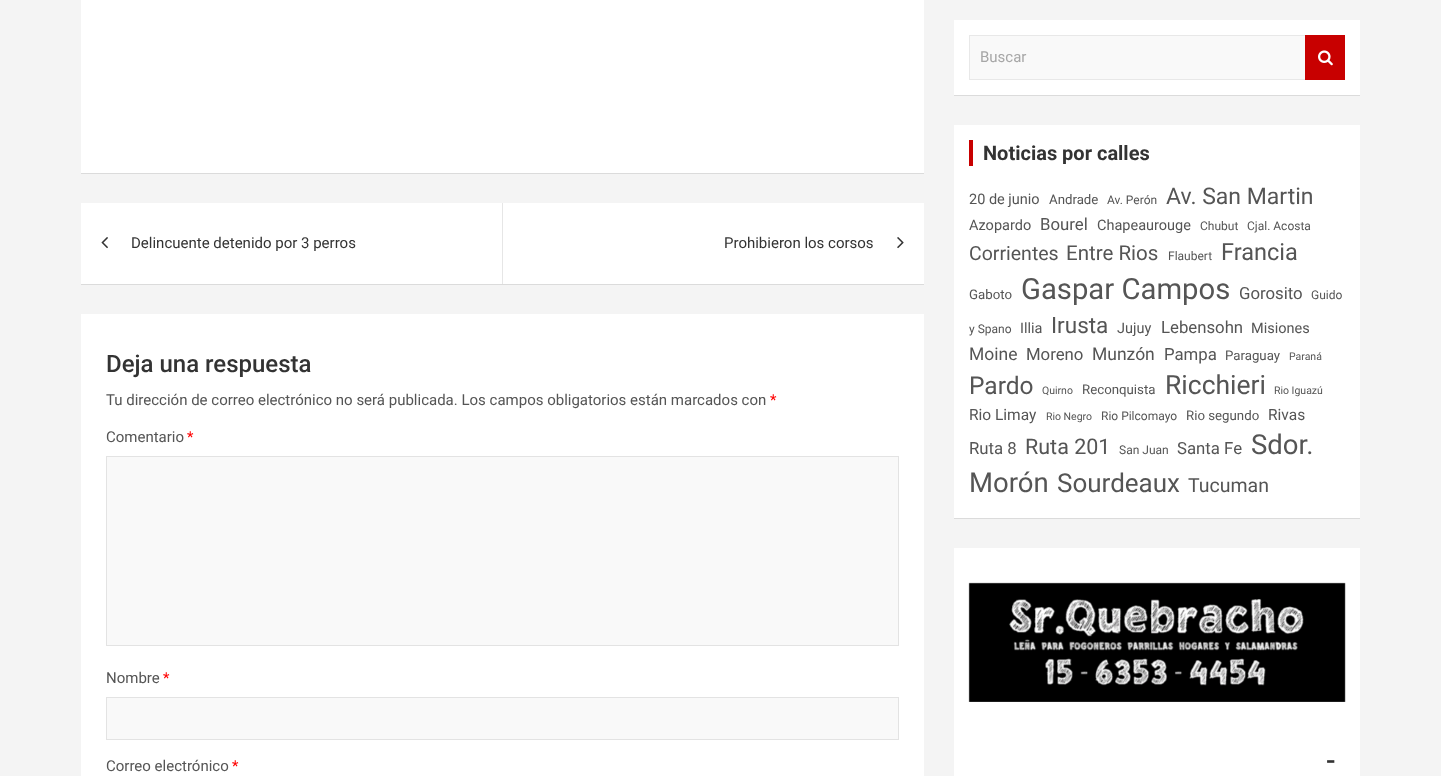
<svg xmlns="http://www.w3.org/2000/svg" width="1441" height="776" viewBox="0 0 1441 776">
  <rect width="100%" height="100%" fill="rgb(244,244,244)"/>
  <rect x="81" y="-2" width="843" height="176" fill="rgba(0,0,0,0.1)" filter="blur(0.5px)"/>
  <rect x="81" y="0" width="843" height="173" fill="rgb(255,255,255)"/>
  <rect x="81" y="204" width="843" height="81" fill="rgba(0,0,0,0.1)" filter="blur(0.5px)"/>
  <rect x="81" y="203" width="843" height="81" fill="rgb(255,255,255)"/>
  <image x="101" y="237" width="7" height="12" href="pic1.png"/>
  <text x="131" y="248" font-family="Roboto" font-size="15" fill="rgb(51,51,51)">Delincuente detenido por 3 perros</text>
  <rect x="502" y="203" width="1" height="81" fill="rgb(230,230,230)"/>
  <text x="724" y="248" font-family="Roboto" font-size="15" fill="rgb(51,51,51)">Prohibieron los corsos</text>
  <image x="897" y="237" width="7" height="12" href="pic2.png"/>
  <rect x="81" y="314" width="843" height="462" fill="rgb(255,255,255)"/>
  <text x="106" y="372" font-family="Roboto" font-size="24" font-weight="500" fill="rgb(51,51,51)">Deja una respuesta</text>
  <text x="106" y="405" font-family="Roboto" font-size="15" fill="rgb(85,85,85)">Tu dirección de correo electrónico no será publicada. Los campos obligatorios están marcados con</text>
  <text x="770" y="405" font-family="Roboto" font-size="15" fill="rgb(255,0,0)">*</text>
  <text x="106" y="442" font-family="Roboto" font-size="15" fill="rgb(85,85,85)">Comentario</text>
  <text x="187" y="442" font-family="Roboto" font-size="15" fill="rgb(255,0,0)">*</text>
  <rect x="106.5" y="456.5" width="792" height="189" fill="rgb(249,249,249)" stroke="rgb(227,227,227)"/>
  <text x="106" y="683" font-family="Roboto" font-size="15" fill="rgb(85,85,85)">Nombre</text>
  <text x="163" y="683" font-family="Roboto" font-size="15" fill="rgb(255,0,0)">*</text>
  <rect x="106.5" y="697.5" width="792" height="42" fill="rgb(249,249,249)" stroke="rgb(227,227,227)"/>
  <text x="106" y="771" font-family="Roboto" font-size="15" fill="rgb(85,85,85)">Correo electrónico</text>
  <text x="232" y="771" font-family="Roboto" font-size="15" fill="rgb(255,0,0)">*</text>
  <rect x="954" y="21" width="406" height="75" fill="rgba(0,0,0,0.1)" filter="blur(0.5px)"/>
  <rect x="954" y="20" width="406" height="75" fill="rgb(255,255,255)"/>
  <rect x="970" y="36" width="335" height="43" fill="rgb(249,249,249)"/>
  <path d="M969 35H1305V36H970Z" fill="rgb(232,232,232)"/>
  <path d="M1305 80H969L970 79H1305Z" fill="rgb(232,232,232)"/>
  <path d="M969 80V35L970 36V79Z" fill="rgba(0,0,0,0.09)"/>
  <text x="980" y="62" font-family="Roboto" font-size="15" fill="rgb(167,167,167)">Buscar</text>
  <rect x="1305" y="35" width="40" height="45" fill="rgb(200,0,0)"/>
  <image x="1318" y="50" width="15" height="16" href="pic3.png"/>
  <rect x="954" y="126" width="406" height="393" fill="rgba(0,0,0,0.1)" filter="blur(0.5px)"/>
  <rect x="954" y="125" width="406" height="393" fill="rgb(255,255,255)"/>
  <rect x="969" y="140" width="4" height="26" fill="rgb(200,0,0)"/>
  <text x="983" y="160" font-family="Roboto" font-size="20" font-weight="bold" fill="rgb(51,51,51)">Noticias por calles</text>
  <text x="969" y="204" font-family="Roboto" font-size="14.5" fill="rgb(85,85,85)">20 de junio</text>
  <text x="1049" y="204" font-family="Roboto" font-size="13.25" fill="rgb(85,85,85)">Andrade</text>
  <text x="1107" y="204" font-family="Roboto" font-size="12" fill="rgb(85,85,85)">Av. Perón</text>
  <text x="1166" y="204" font-family="Roboto" font-size="23" fill="rgb(85,85,85)">Av. San Martin</text>
  <text x="969" y="230" font-family="Roboto" font-size="14.5" fill="rgb(85,85,85)">Azopardo</text>
  <text x="1040" y="230" font-family="Roboto" font-size="16.75" fill="rgb(85,85,85)">Bourel</text>
  <text x="1097" y="230" font-family="Roboto" font-size="14.5" fill="rgb(85,85,85)">Chapeaurouge</text>
  <g font-family="Roboto" font-size="12" fill="rgb(85,85,85)">
    <text x="1200" y="230">Chubut</text>
    <text x="1247" y="230">Cjal. Acosta</text>
  </g>
  <text x="969" y="260" font-family="Roboto" font-size="19.5" fill="rgb(85,85,85)">Corrientes</text>
  <text x="1066" y="260" font-family="Roboto" font-size="20.5" fill="rgb(85,85,85)">Entre Rios</text>
  <text x="1168" y="260" font-family="Roboto" font-size="12" fill="rgb(85,85,85)">Flaubert</text>
  <text x="1221" y="260" font-family="Roboto" font-size="23.5" fill="rgb(85,85,85)">Francia</text>
  <text x="969" y="299" font-family="Roboto" font-size="13.25" fill="rgb(85,85,85)">Gaboto</text>
  <text x="1021" y="299" font-family="Roboto" font-size="29.25" fill="rgb(85,85,85)">Gaspar Campos</text>
  <text x="1239" y="299" font-family="Roboto" font-size="16.75" fill="rgb(85,85,85)">Gorosito</text>
  <g font-family="Roboto" font-size="12" fill="rgb(85,85,85)">
    <text x="1311" y="299">Guido</text>
    <text x="969" y="333">y Spano</text>
  </g>
  <text x="1020" y="333" font-family="Roboto" font-size="14.5" fill="rgb(85,85,85)">Illia</text>
  <text x="1051" y="333" font-family="Roboto" font-size="22.5" fill="rgb(85,85,85)">Irusta</text>
  <text x="1117" y="333" font-family="Roboto" font-size="14.5" fill="rgb(85,85,85)">Jujuy</text>
  <text x="1161" y="333" font-family="Roboto" font-size="16.75" fill="rgb(85,85,85)">Lebensohn</text>
  <text x="1251" y="333" font-family="Roboto" font-size="14.5" fill="rgb(85,85,85)">Misiones</text>
  <text x="969" y="360" font-family="Roboto" font-size="17.5" fill="rgb(85,85,85)">Moine</text>
  <text x="1026" y="360" font-family="Roboto" font-size="16.75" fill="rgb(85,85,85)">Moreno</text>
  <text x="1092" y="360" font-family="Roboto" font-size="17.5" fill="rgb(85,85,85)">Munzón</text>
  <text x="1164" y="360" font-family="Roboto" font-size="16.75" fill="rgb(85,85,85)">Pampa</text>
  <text x="1225" y="360" font-family="Roboto" font-size="13.25" fill="rgb(85,85,85)">Paraguay</text>
  <text x="1289" y="360" font-family="Roboto" font-size="10.5" fill="rgb(85,85,85)">Paraná</text>
  <text x="969" y="394" font-family="Roboto" font-size="24.5" fill="rgb(85,85,85)">Pardo</text>
  <text x="1042" y="394" font-family="Roboto" font-size="10.5" fill="rgb(85,85,85)">Quirno</text>
  <text x="1082" y="394" font-family="Roboto" font-size="13.25" fill="rgb(85,85,85)">Reconquista</text>
  <text x="1165" y="394" font-family="Roboto" font-size="26.5" fill="rgb(85,85,85)">Ricchieri</text>
  <text x="1274" y="394" font-family="Roboto" font-size="10.5" fill="rgb(85,85,85)">Rio Iguazú</text>
  <text x="969" y="420" font-family="Roboto" font-size="15.5" fill="rgb(85,85,85)">Rio Limay</text>
  <text x="1046" y="420" font-family="Roboto" font-size="10.5" fill="rgb(85,85,85)">Rio Negro</text>
  <text x="1101" y="420" font-family="Roboto" font-size="12" fill="rgb(85,85,85)">Rio Pilcomayo</text>
  <text x="1186" y="420" font-family="Roboto" font-size="13.25" fill="rgb(85,85,85)">Rio segundo</text>
  <text x="1268" y="420" font-family="Roboto" font-size="15.5" fill="rgb(85,85,85)">Rivas</text>
  <text x="969" y="454" font-family="Roboto" font-size="16.75" fill="rgb(85,85,85)">Ruta 8</text>
  <text x="1025" y="454" font-family="Roboto" font-size="21.5" fill="rgb(85,85,85)">Ruta 201</text>
  <text x="1119" y="454" font-family="Roboto" font-size="12" fill="rgb(85,85,85)">San Juan</text>
  <text x="1177" y="454" font-family="Roboto" font-size="16.75" fill="rgb(85,85,85)">Santa Fe</text>
  <g font-family="Roboto" font-size="27.5" fill="rgb(85,85,85)">
    <text x="1251" y="454">Sdor.</text>
    <text x="969" y="492">Morón</text>
  </g>
  <text x="1057" y="492" font-family="Roboto" font-size="26" fill="rgb(85,85,85)">Sourdeaux</text>
  <text x="1188" y="492" font-family="Roboto" font-size="19.5" fill="rgb(85,85,85)">Tucuman</text>
  <rect x="954" y="548" width="406" height="228" fill="rgb(255,255,255)"/>
  <image x="968" y="582" width="378" height="120" href="pic4.png"/>
  <text x="1326" y="770" font-family="Roboto" font-size="28" font-weight="500" fill="rgb(51,51,51)">-</text>
</svg>
